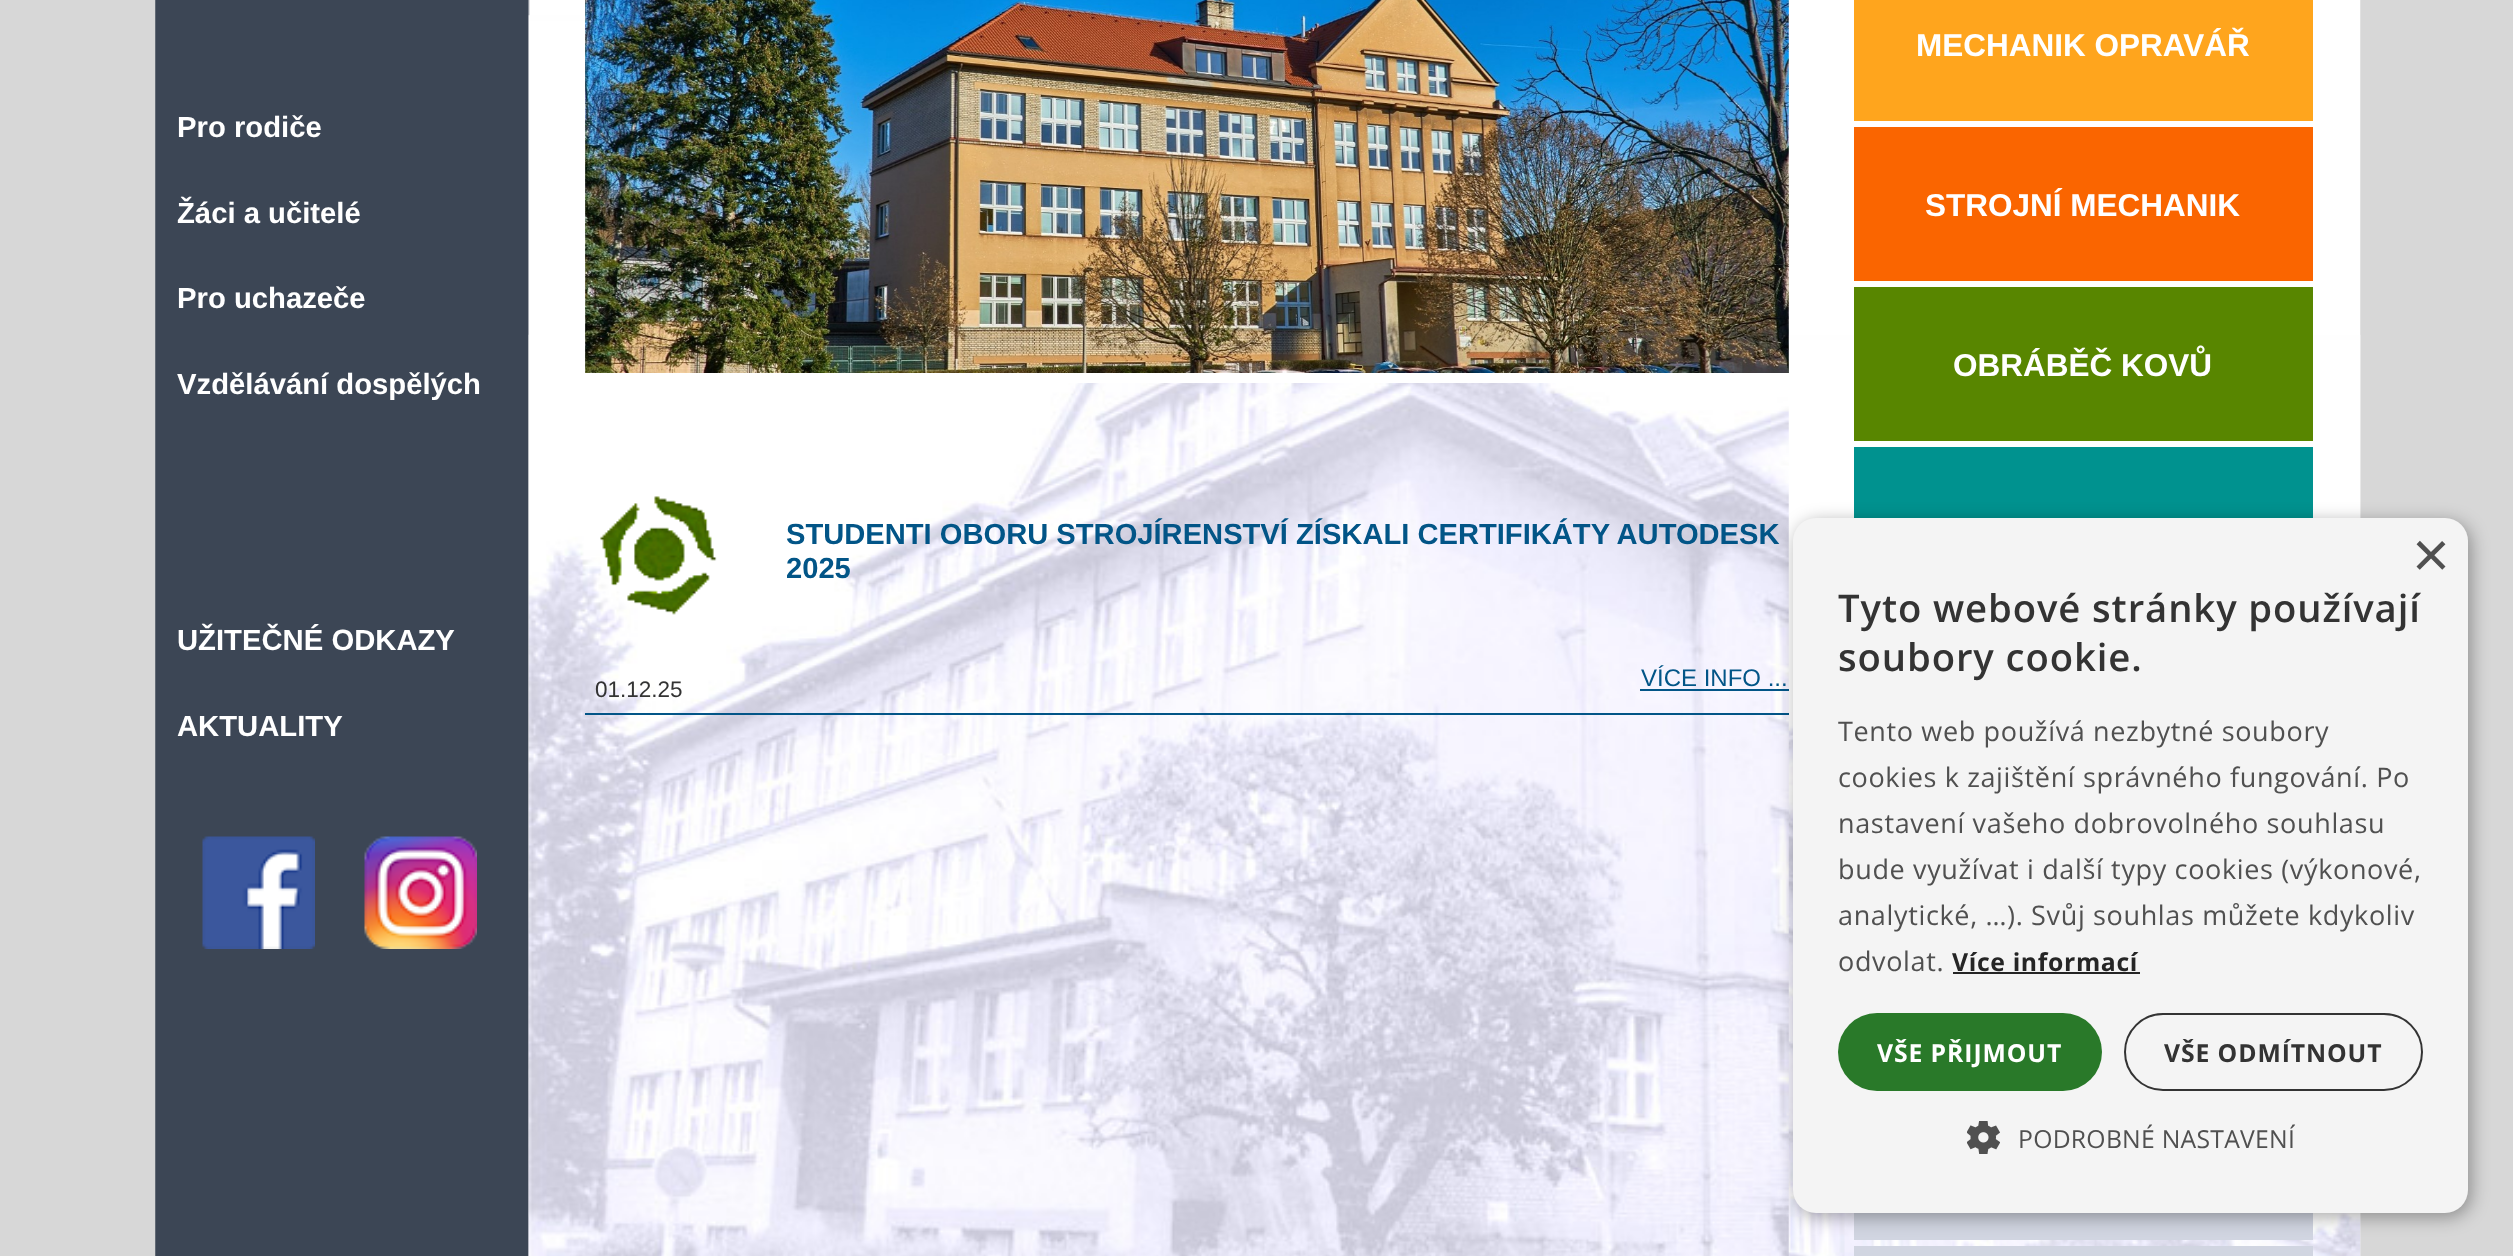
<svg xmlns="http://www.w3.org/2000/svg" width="2513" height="1256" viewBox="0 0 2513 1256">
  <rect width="100%" height="100%" fill="rgb(215,215,215)"/>
  <image x="155" y="0" width="2206" height="1256" href="pic1.png"/>
  <g font-family="Liberation Sans" font-size="29.25" font-weight="bold" fill="rgb(255,255,255)">
    <text x="177" y="137">Pro rodiče</text>
    <text x="177" y="223">Žáci a učitelé</text>
    <text x="177" y="308">Pro uchazeče</text>
    <text x="177" y="394">Vzdělávání dospělých</text>
    <text x="177" y="650">UŽITEČNÉ ODKAZY</text>
    <text x="177" y="736">AKTUALITY</text>
  </g>
  <image x="202" y="836" width="113" height="113" href="pic2.png"/>
  <image x="364" y="836" width="113" height="113" href="pic3.png"/>
  <image x="528" y="334" width="1833" height="922" href="pic4.png"/>
  <rect x="1854" y="0" width="459" height="121" fill="rgb(255,165,29)"/>
  <text x="1916" y="56" font-family="Liberation Sans" font-size="31.5" font-weight="bold" fill="rgb(255,255,255)">MECHANIK OPRAVÁŘ</text>
  <rect x="1854" y="127" width="459" height="154" fill="rgb(250,101,0)"/>
  <text x="1925" y="216" font-family="Liberation Sans" font-size="31.5" font-weight="bold" fill="rgb(255,255,255)">STROJNÍ MECHANIK</text>
  <rect x="1854" y="287" width="459" height="154" fill="rgb(88,134,0)"/>
  <text x="1953" y="376" font-family="Liberation Sans" font-size="31.5" font-weight="bold" fill="rgb(255,255,255)">OBRÁBĚČ KOVŮ</text>
  <rect x="1854" y="447" width="459" height="71" fill="rgb(0,146,143)"/>
  <rect x="1854" y="1213" width="459" height="27" fill="rgb(209,213,225)"/>
  <rect x="1854" y="1246" width="459" height="10" fill="rgb(209,213,225)"/>
  <image x="528" y="15" width="1261" height="1241" href="pic5.png"/>
  <rect x="585" y="-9" width="1204" height="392" rx="9" fill="rgb(255,255,255)"/>
  <image x="585" y="0" width="1204" height="373" href="pic6.png"/>
  <rect x="585" y="713" width="1204" height="2" fill="rgb(2,85,135)"/>
  <image x="600" y="496" width="117" height="119" href="pic7.png"/>
  <g font-family="Liberation Sans" font-size="29.15" font-weight="bold" fill="rgb(2,85,135)">
    <text>
      <tspan x="786" y="544">STUDENTI OBORU STROJÍRENSTVÍ ZÍSKALI CERTIFIKÁTY AUTODESK</tspan>
      <tspan x="786" y="578">2025</tspan>
    </text>
  </g>
  <text x="595" y="697" font-family="Liberation Sans" font-size="22.5" fill="rgb(51,51,51)">01.12.25</text>
  <text x="1641" y="686" font-family="Liberation Sans" font-size="24" fill="rgb(2,85,135)">VÍCE INFO ...</text>
  <rect x="1640" y="689" width="149" height="2" fill="rgb(2,85,135)"/>
  <rect x="1796" y="522" width="675" height="695" rx="23" fill="rgba(0,0,0,0.35)" filter="blur(9px)"/>
  <rect x="1793" y="518" width="675" height="695" rx="23" fill="rgb(244,244,244)"/>
  <text x="2412" y="577" font-family="Liberation Sans" font-size="65" fill="rgb(80,80,80)">×</text>
  <g font-family="Open Sans" font-size="38.25" font-weight="600" letter-spacing="0.9" fill="rgb(51,51,51)">
    <text>
      <tspan x="1838" y="622">Tyto webové stránky používají</tspan>
      <tspan x="1838" y="671">soubory cookie.</tspan>
    </text>
  </g>
  <g font-family="Open Sans" font-size="27" letter-spacing="0.65" fill="rgb(80,80,80)">
    <text>
      <tspan x="1838" y="741">Tento web používá nezbytné soubory</tspan>
      <tspan x="1838" y="787">cookies k zajištění správného fungování. Po</tspan>
      <tspan x="1838" y="833">nastavení vašeho dobrovolného souhlasu</tspan>
      <tspan x="1838" y="879">bude využívat i další typy cookies (výkonové,</tspan>
      <tspan x="1838" y="925">analytické, …). Svůj souhlas můžete kdykoliv</tspan>
      <tspan x="1838" y="971">odvolat.</tspan>
    </text>
  </g>
  <text x="1952" y="971" font-family="Open Sans" font-size="24.75" font-weight="bold" letter-spacing="0.65" fill="rgb(37,37,37)">Více informací</text>
  <rect x="1953" y="972" width="187" height="2" fill="rgb(37,37,37)"/>
  <rect x="1838" y="1013" width="264" height="78" rx="39" fill="rgb(41,121,41)"/>
  <text x="1877" y="1062" font-family="Open Sans" font-size="24.75" font-weight="bold" letter-spacing="0.9" fill="rgb(255,255,255)">VŠE PŘIJMOUT</text>
  <rect x="2125" y="1014" width="297" height="76" rx="38" fill="none" stroke="rgb(51,51,51)" stroke-width="2"/>
  <text x="2164" y="1062" font-family="Open Sans" font-size="24.75" font-weight="bold" letter-spacing="0.9" fill="rgb(51,51,51)">VŠE ODMÍTNOUT</text>
  <image x="1967" y="1121" width="33" height="33" href="pic8.png"/>
  <text x="2018" y="1148" font-family="Open Sans" font-size="24.75" letter-spacing="0.25" fill="rgb(80,80,80)">PODROBNÉ NASTAVENÍ</text>
</svg>
